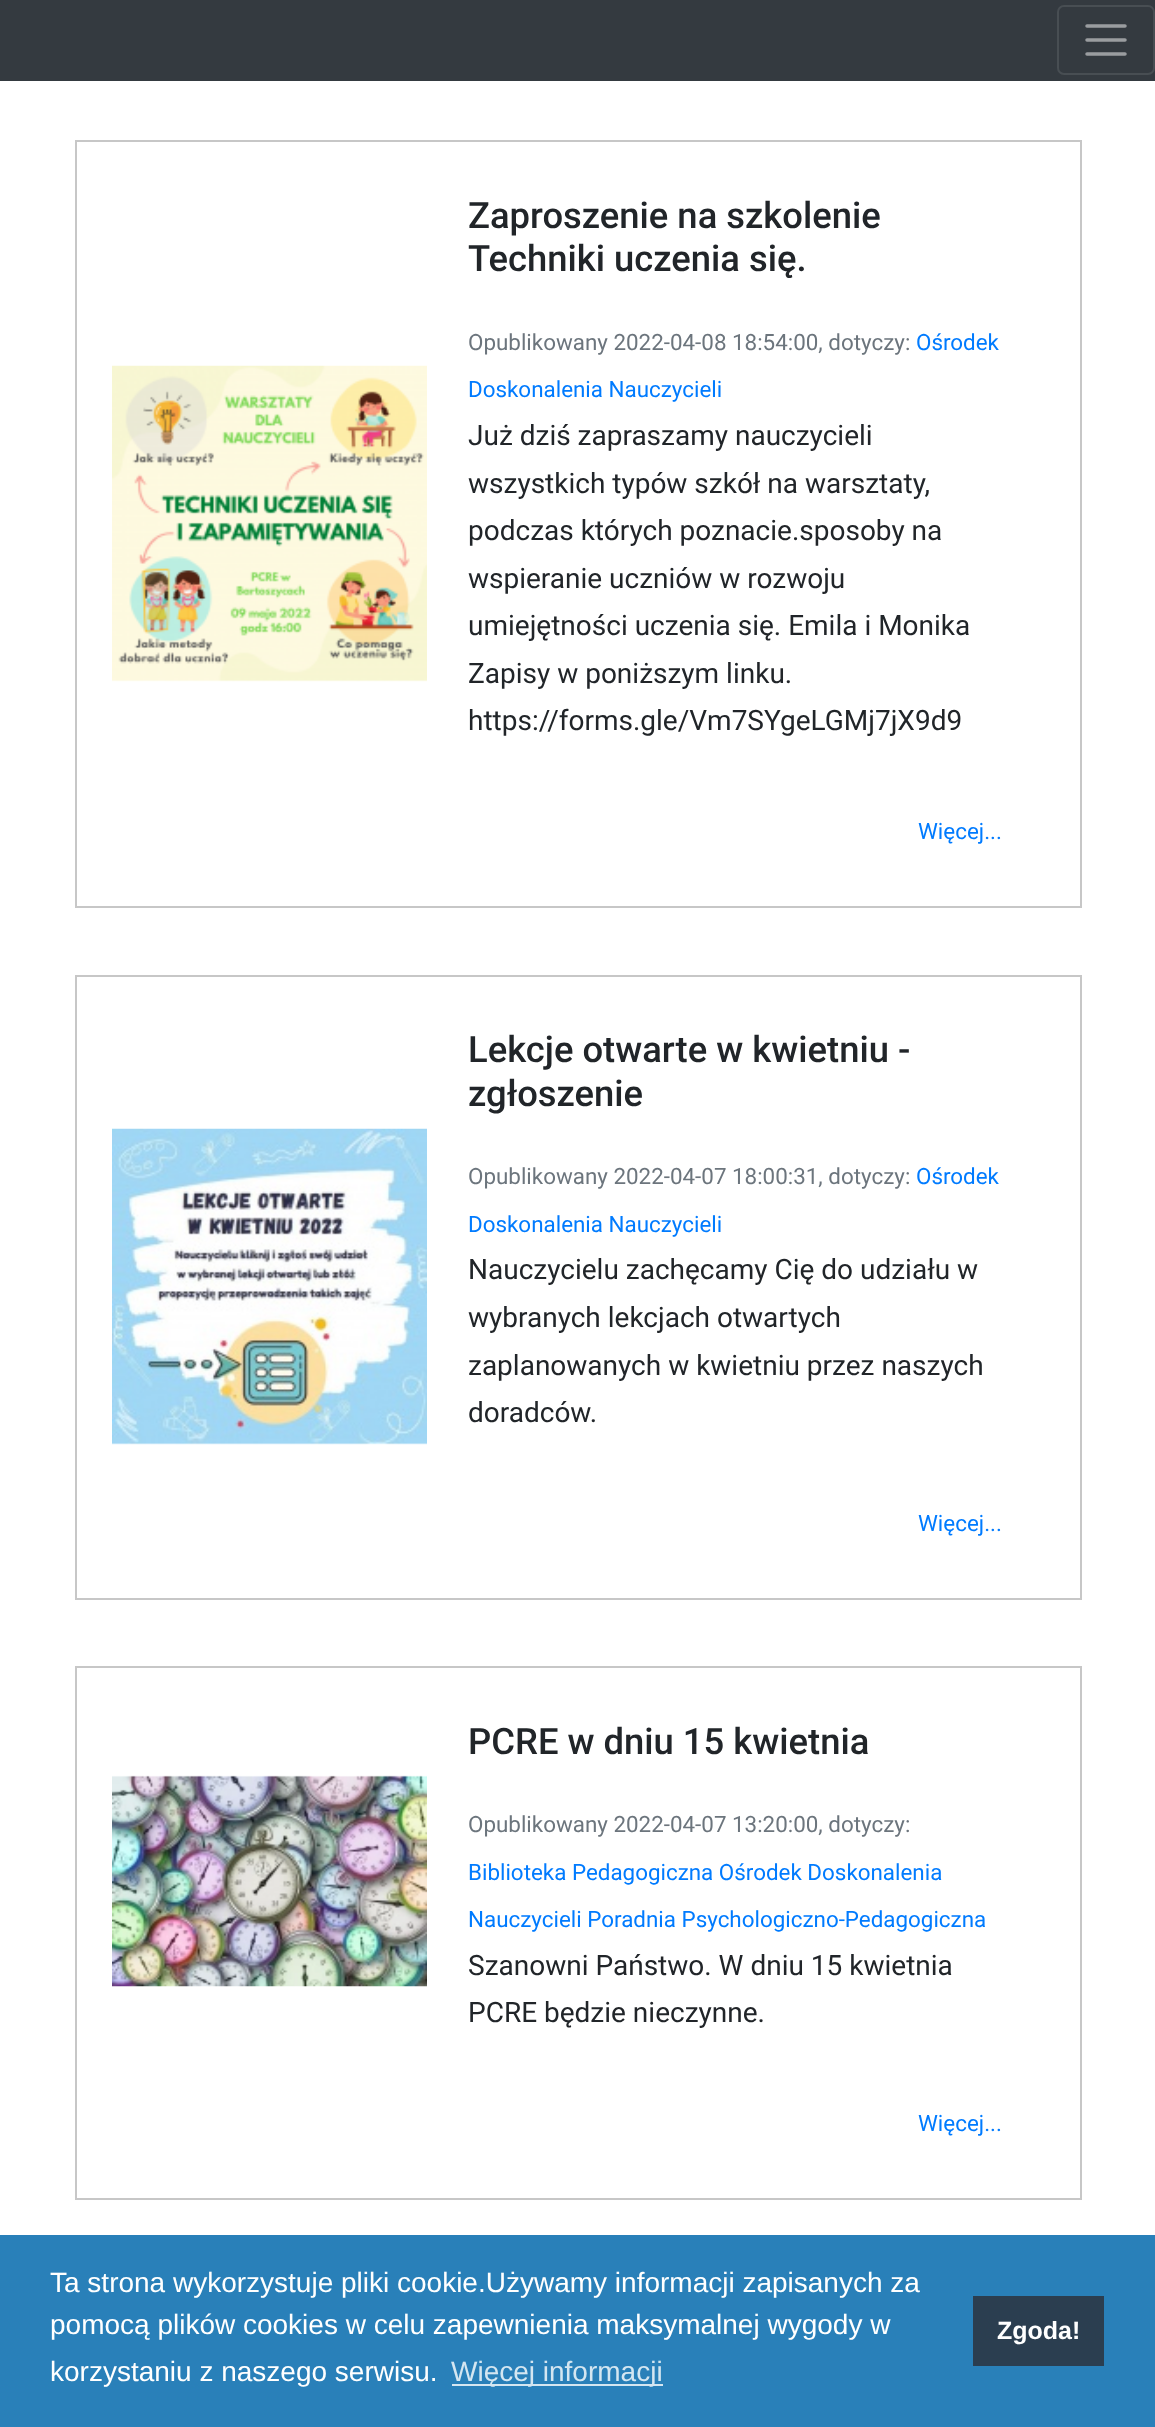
<svg xmlns="http://www.w3.org/2000/svg" width="1155" height="2427" viewBox="0 0 1155 2427">
  <rect width="100%" height="100%" fill="rgb(255,255,255)"/>
  <rect x="0" y="0" width="1155" height="81" fill="rgb(52,58,64)"/>
  <rect x="1058" y="6" width="96" height="68" rx="6" fill="none" stroke="rgb(72,78,83)" stroke-width="2"/>
  <path d="M1087 26H1125M1087 40H1125M1087 54H1125" fill="none" stroke="rgb(154,157,160)" stroke-width="3.5" stroke-linecap="round"/>
  <rect x="76" y="141" width="1005" height="766" fill="none" stroke="rgb(199,199,199)" stroke-width="2"/>
  <image x="112" y="365" width="315" height="317" href="pic1.png"/>
  <g font-family="Roboto" font-size="36.4" font-weight="500" fill="rgb(33,37,41)">
    <text>
      <tspan x="468" y="228">Zaproszenie na szkolenie</tspan>
      <tspan x="468" y="271">Techniki uczenia się.</tspan>
    </text>
  </g>
  <text x="468" y="350" font-family="Roboto" font-size="22.4" fill="rgb(108,117,125)">Opublikowany 2022-04-08 18:54:00, dotyczy:</text>
  <g font-family="Roboto" font-size="22.4" fill="rgb(0,123,255)">
    <text x="916" y="350">Ośrodek</text>
    <text x="468" y="397">Doskonalenia Nauczycieli</text>
  </g>
  <g font-family="Roboto" font-size="28" fill="rgb(33,37,41)">
    <text>
      <tspan x="468" y="445">Już dziś zapraszamy nauczycieli</tspan>
      <tspan x="468" y="493">wszystkich typów szkół na warsztaty,</tspan>
      <tspan x="468" y="540">podczas których poznacie.sposoby na</tspan>
      <tspan x="468" y="588">wspieranie uczniów w rozwoju</tspan>
      <tspan x="468" y="635">umiejętności uczenia się. Emila i Monika</tspan>
      <tspan x="468" y="683">Zapisy w poniższym linku.</tspan>
      <tspan x="468" y="730">https://forms.gle/Vm7SYgeLGMj7jX9d9</tspan>
    </text>
  </g>
  <text x="918" y="839" font-family="Roboto" font-size="22.4" fill="rgb(0,123,255)">Więcej...</text>
  <rect x="76" y="976" width="1005" height="623" fill="none" stroke="rgb(199,199,199)" stroke-width="2"/>
  <image x="112" y="1128" width="315" height="317" href="pic2.png"/>
  <g font-family="Roboto" font-size="36.4" font-weight="500" fill="rgb(33,37,41)">
    <text>
      <tspan x="468" y="1062">Lekcje otwarte w kwietniu -</tspan>
      <tspan x="468" y="1106">zgłoszenie</tspan>
    </text>
  </g>
  <text x="468" y="1184" font-family="Roboto" font-size="22.4" fill="rgb(108,117,125)">Opublikowany 2022-04-07 18:00:31, dotyczy:</text>
  <g font-family="Roboto" font-size="22.4" fill="rgb(0,123,255)">
    <text x="916" y="1184">Ośrodek</text>
    <text x="468" y="1232">Doskonalenia Nauczycieli</text>
  </g>
  <g font-family="Roboto" font-size="28" fill="rgb(33,37,41)">
    <text>
      <tspan x="468" y="1279">Nauczycielu zachęcamy Cię do udziału w</tspan>
      <tspan x="468" y="1327">wybranych lekcjach otwartych</tspan>
      <tspan x="468" y="1375">zaplanowanych w kwietniu przez naszych</tspan>
      <tspan x="468" y="1422">doradców.</tspan>
    </text>
  </g>
  <text x="918" y="1531" font-family="Roboto" font-size="22.4" fill="rgb(0,123,255)">Więcej...</text>
  <rect x="76" y="1667" width="1005" height="532" fill="none" stroke="rgb(199,199,199)" stroke-width="2"/>
  <image x="112" y="1775" width="315" height="212" href="pic3.png"/>
  <text x="468" y="1754" font-family="Roboto" font-size="36.4" font-weight="500" fill="rgb(33,37,41)">PCRE w dniu 15 kwietnia</text>
  <text x="468" y="1832" font-family="Roboto" font-size="22.4" fill="rgb(108,117,125)">Opublikowany 2022-04-07 13:20:00, dotyczy:</text>
  <g font-family="Roboto" font-size="22.4" fill="rgb(0,123,255)">
    <text x="468" y="1880">Biblioteka Pedagogiczna Ośrodek Doskonalenia</text>
    <text x="468" y="1927">Nauczycieli Poradnia Psychologiczno-Pedagogiczna</text>
  </g>
  <g font-family="Roboto" font-size="28" fill="rgb(33,37,41)">
    <text>
      <tspan x="468" y="1975">Szanowni Państwo. W dniu 15 kwietnia</tspan>
      <tspan x="468" y="2022">PCRE będzie nieczynne.</tspan>
    </text>
  </g>
  <text x="918" y="2131" font-family="Roboto" font-size="22.4" fill="rgb(0,123,255)">Więcej...</text>
  <rect x="0" y="2235" width="1155" height="192" fill="rgb(41,128,185)"/>
  <g font-family="Liberation Sans" font-size="28" fill="rgb(255,255,255)">
    <text>
      <tspan x="50" y="2292">Ta strona wykorzystuje pliki cookie.Używamy informacji zapisanych za</tspan>
      <tspan x="50" y="2334">pomocą plików cookies w celu zapewnienia maksymalnej wygody w</tspan>
      <tspan x="50" y="2381">korzystaniu z naszego serwisu.</tspan>
    </text>
  </g>
  <rect x="452" y="2384" width="211" height="2" fill="rgb(212,230,241)"/>
  <text x="451" y="2381" font-family="Liberation Sans" font-size="28" fill="rgb(212,230,241)">Więcej informacji</text>
  <rect x="973" y="2296" width="131" height="70" fill="rgb(43,62,80)"/>
  <text x="997" y="2339" font-family="Liberation Sans" font-size="25" font-weight="bold" fill="rgb(255,255,255)">Zgoda!</text>
</svg>
